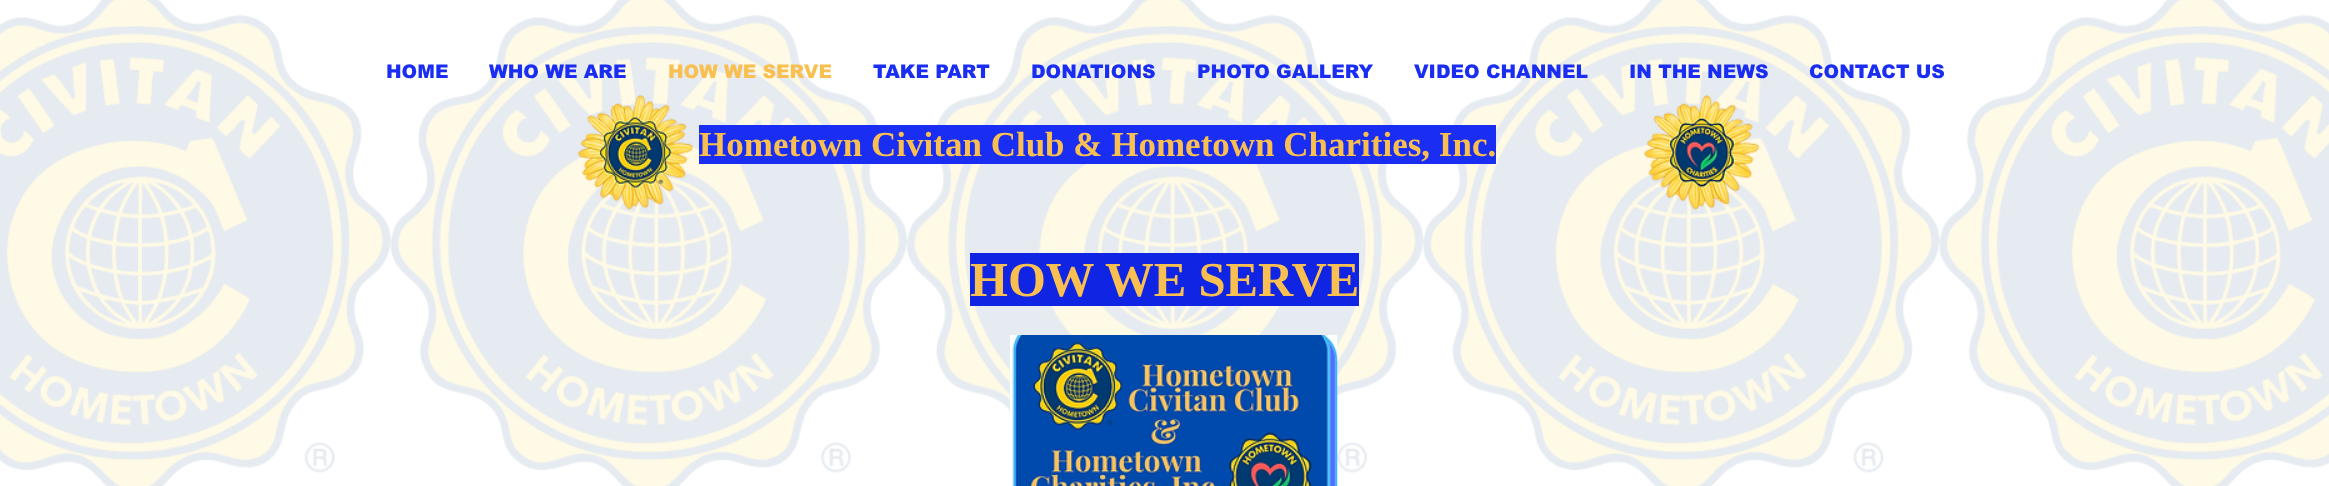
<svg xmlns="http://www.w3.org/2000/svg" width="2329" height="486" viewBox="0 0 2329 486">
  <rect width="100%" height="100%" fill="rgb(255,255,255)"/>
  <image x="0" y="0" width="2329" height="486" href="pic1.png"/>
  <g font-family="arial" font-size="18.75" font-weight="900" fill="rgb(26,45,243)">
    <text x="386" y="78">HOME</text>
    <text x="489" y="78">WHO WE ARE</text>
  </g>
  <text x="668" y="78" font-family="arial" font-size="18.75" font-weight="900" fill="rgb(249,191,81)">HOW WE SERVE</text>
  <g font-family="arial" font-size="18.75" font-weight="900" fill="rgb(26,45,243)">
    <text x="873" y="78">TAKE PART</text>
    <text x="1031" y="78">DONATIONS</text>
    <text x="1197" y="78">PHOTO GALLERY</text>
    <text x="1414" y="78">VIDEO CHANNEL</text>
    <text x="1629" y="78">IN THE NEWS</text>
    <text x="1809" y="78">CONTACT US</text>
  </g>
  <image x="577" y="94" width="116" height="117" href="pic2.png"/>
  <rect x="699" y="125" width="797" height="39" fill="rgb(26,45,243)"/>
  <text x="699" y="156" font-family="Liberation Serif" font-size="35" font-weight="bold" fill="rgb(249,191,81)">Hometown Civitan Club &amp; Hometown Charities, Inc.</text>
  <image x="1643" y="94" width="116" height="117" href="pic3.png"/>
  <rect x="970" y="253" width="389" height="53" fill="rgb(16,37,227)"/>
  <text x="970" y="296" font-family="Liberation Serif" font-size="48.75" font-weight="bold" fill="rgb(249,191,81)">HOW WE SERVE</text>
  <image x="1010" y="335" width="328" height="151" href="pic4.png"/>
</svg>
